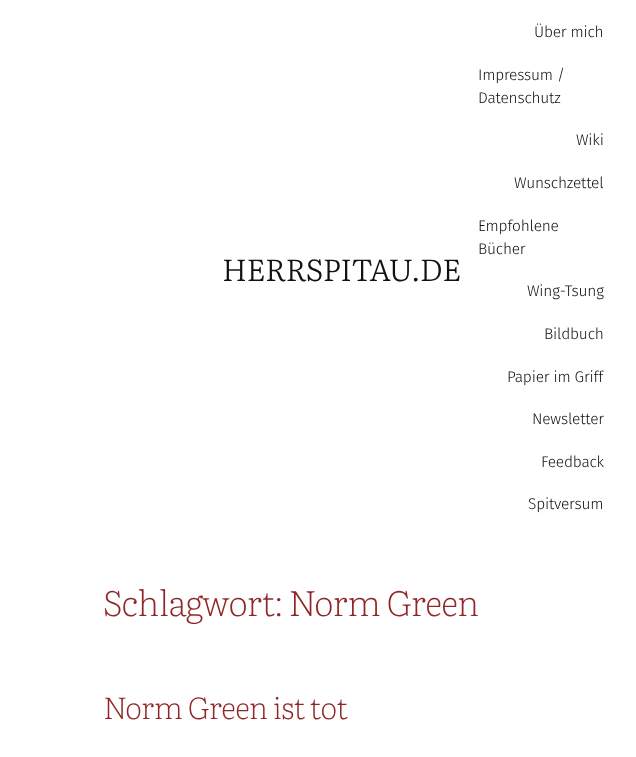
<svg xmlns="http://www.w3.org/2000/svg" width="636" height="757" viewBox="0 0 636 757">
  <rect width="100%" height="100%" fill="rgb(255,255,255)"/>
  <text x="222" y="281" font-family="Literata" font-size="30.5" font-weight="300" letter-spacing="-0.5" fill="rgb(17,17,17)">HERRSPITAU.DE</text>
  <g font-family="Fira Sans" font-size="15.5" font-weight="300" letter-spacing="-0.2" fill="rgb(17,17,17)">
    <text x="534" y="37">Über mich</text>
    <text>
      <tspan x="478" y="80">Impressum /</tspan>
      <tspan x="478" y="103">Datenschutz</tspan>
    </text>
    <text x="576" y="145">Wiki</text>
    <text x="514" y="188">Wunschzettel</text>
    <text>
      <tspan x="478" y="231">Empfohlene</tspan>
      <tspan x="478" y="254">Bücher</tspan>
    </text>
    <text x="527" y="296">Wing-Tsung</text>
    <text x="544" y="339">Bildbuch</text>
    <text x="507" y="382">Papier im Griff</text>
    <text x="532" y="424">Newsletter</text>
    <text x="541" y="467">Feedback</text>
    <text x="528" y="509">Spitversum</text>
  </g>
  <text x="103" y="616" font-family="Literata" font-size="35.25" font-weight="200" letter-spacing="-0.7" fill="rgb(144,39,39)">Schlagwort: Norm Green</text>
  <text x="103" y="719" font-family="Literata" font-size="30.5" font-weight="200" letter-spacing="-0.6" fill="rgb(144,39,39)">Norm Green ist tot</text>
</svg>
